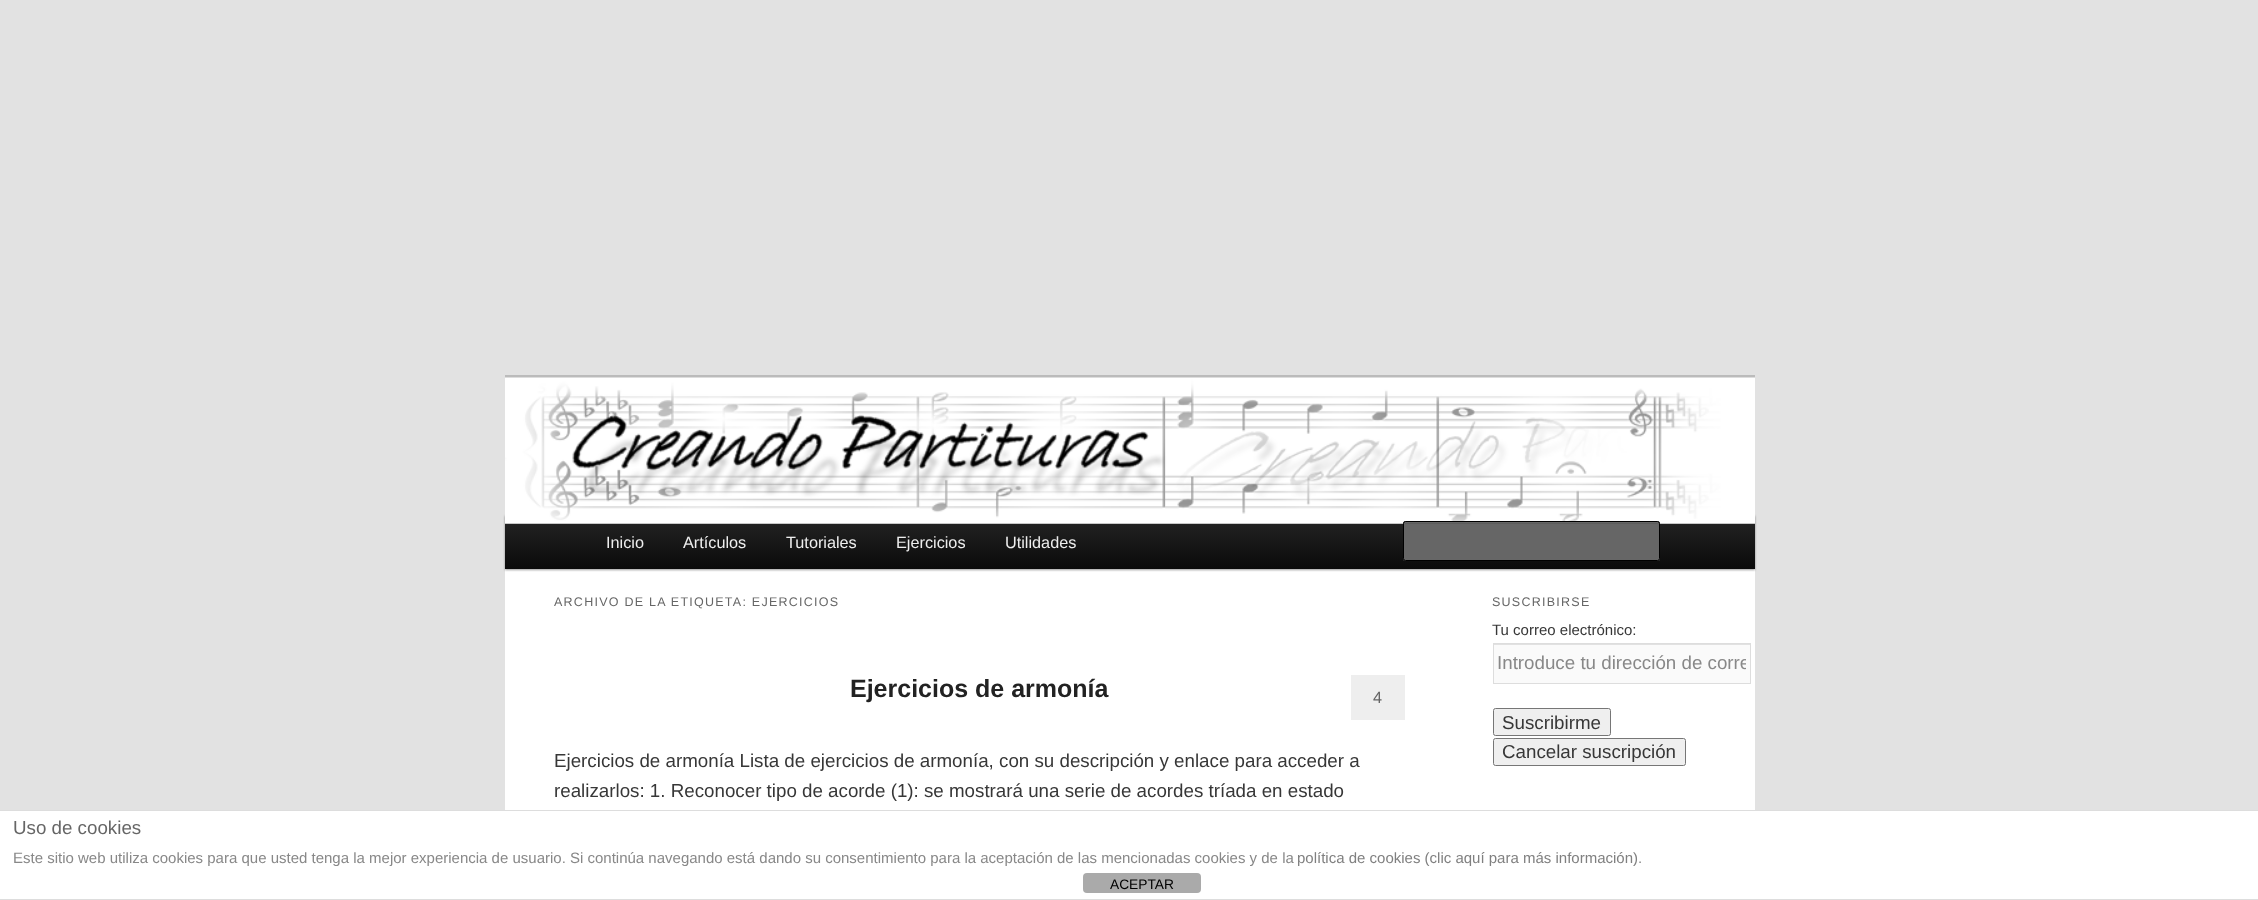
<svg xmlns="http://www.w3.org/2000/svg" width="2258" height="900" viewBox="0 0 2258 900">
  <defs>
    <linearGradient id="g1" gradientUnits="userSpaceOnUse" x1="1130" y1="515" x2="1130" y2="569"><stop offset="0" stop-color="rgb(37,37,37)"/><stop offset="1" stop-color="rgb(10,10,10)"/></linearGradient>
    <clipPath id="clip1"><rect x="1498" y="648" width="248" height="31"/></clipPath>
  </defs>
  <rect width="100%" height="100%" fill="rgb(226,226,226)"/>
  <rect x="505" y="569" width="1250" height="241" fill="rgb(255,255,255)"/>
  <rect x="505" y="375" width="1250" height="3" fill="rgb(187,187,187)"/>
  <rect x="505" y="516" width="1250" height="54" fill="rgba(0,0,0,0.4)" filter="blur(1px)"/>
  <rect x="505" y="523" width="1250" height="46" fill="url(#g1)"/>
  <image x="505" y="377" width="1250" height="147" href="pic1.png"/>
  <g font-family="Liberation Sans" font-size="16.25" fill="rgb(238,238,238)">
    <text x="606" y="548">Inicio</text>
    <text x="683" y="548">Artículos</text>
    <text x="786" y="548">Tutoriales</text>
    <text x="896" y="548">Ejercicios</text>
    <text x="1005" y="548">Utilidades</text>
  </g>
  <rect x="1403" y="521" width="257" height="40" rx="2.5" fill="rgb(102,102,102)"/>
  <path d="M1405 524H1658L1659 525V523H1405C1404 523 1404 524 1404 525C1404 524 1404 524 1405 524Z" fill="rgb(92,92,92)"/>
  <rect x="1403.5" y="521.5" width="256" height="39" rx="2" fill="none" stroke="rgb(0,0,0)"/>
  <text x="554" y="606" font-family="Liberation Sans" font-size="12.5" letter-spacing="1.25" fill="rgb(102,102,102)">ARCHIVO DE LA ETIQUETA: EJERCICIOS</text>
  <text x="850" y="697" font-family="Liberation Sans" font-size="25" font-weight="bold" fill="rgb(34,34,34)">Ejercicios de armonía</text>
  <rect x="1351" y="675" width="54" height="45" fill="rgb(238,238,238)"/>
  <text x="1373" y="703" font-family="Liberation Sans" font-size="16.25" fill="rgb(102,102,102)">4</text>
  <g font-family="Liberation Sans" font-size="18.75" fill="rgb(55,55,55)">
    <text>
      <tspan x="554" y="767">Ejercicios de armonía Lista de ejercicios de armonía, con su descripción y enlace para acceder a</tspan>
      <tspan x="554" y="797">realizarlos: 1. Reconocer tipo de acorde (1): se mostrará una serie de acordes tríada en estado</tspan>
    </text>
  </g>
  <text x="1492" y="606" font-family="Liberation Sans" font-size="12.5" letter-spacing="1.25" fill="rgb(102,102,102)">SUSCRIBIRSE</text>
  <text x="1492" y="635" font-family="Liberation Sans" font-size="15" fill="rgb(55,55,55)">Tu correo electrónico:</text>
  <rect x="1494" y="645" width="256" height="38" fill="rgb(250,250,250)"/>
  <rect x="1494" y="644" width="256" height="1" fill="rgb(225,225,225)"/>
  <rect x="1493.5" y="643.5" width="257" height="40" fill="none" stroke="rgb(221,221,221)"/>
  <g clip-path="url(#clip1)">
    <text x="1497" y="669" font-family="Liberation Sans" font-size="18.75" fill="rgb(136,136,136)">Introduce tu dirección de corre</text>
  </g>
  <rect x="1493.5" y="708.5" width="117" height="27" rx="2" fill="rgb(239,239,239)" stroke="rgb(118,118,118)"/>
  <text x="1502" y="729" font-family="Liberation Sans" font-size="18.75" fill="rgb(55,55,55)">Suscribirme</text>
  <rect x="1493.5" y="738.5" width="192" height="27" rx="2" fill="rgb(239,239,239)" stroke="rgb(118,118,118)"/>
  <text x="1502" y="758" font-family="Liberation Sans" font-size="18.75" fill="rgb(55,55,55)">Cancelar suscripción</text>
  <rect x="0" y="811" width="2258" height="88" fill="rgb(255,255,255)"/>
  <rect x="0" y="810" width="2258" height="1" fill="rgb(221,221,221)"/>
  <rect x="0" y="899" width="2258" height="1" fill="rgb(221,221,221)"/>
  <text x="13" y="834" font-family="Liberation Sans" font-size="18.75" fill="rgb(102,102,102)">Uso de cookies</text>
  <text x="13" y="863" font-family="Liberation Sans" font-size="15" fill="rgb(136,136,136)">Este sitio web utiliza cookies para que usted tenga la mejor experiencia de usuario. Si continúa navegando está dando su consentimiento para la aceptación de las mencionadas cookies y de la</text>
  <text x="1297" y="863" font-family="Liberation Sans" font-size="15" fill="rgb(128,128,128)">política de cookies (clic aquí para más información)</text>
  <text x="1638" y="863" font-family="Liberation Sans" font-size="15" fill="rgb(136,136,136)">.</text>
  <rect x="1083" y="873" width="118" height="20" rx="4" fill="rgb(170,170,170)"/>
  <text x="1110" y="889" font-family="Liberation Sans" font-size="13.75" fill="rgb(0,0,0)">ACEPTAR</text>
</svg>
